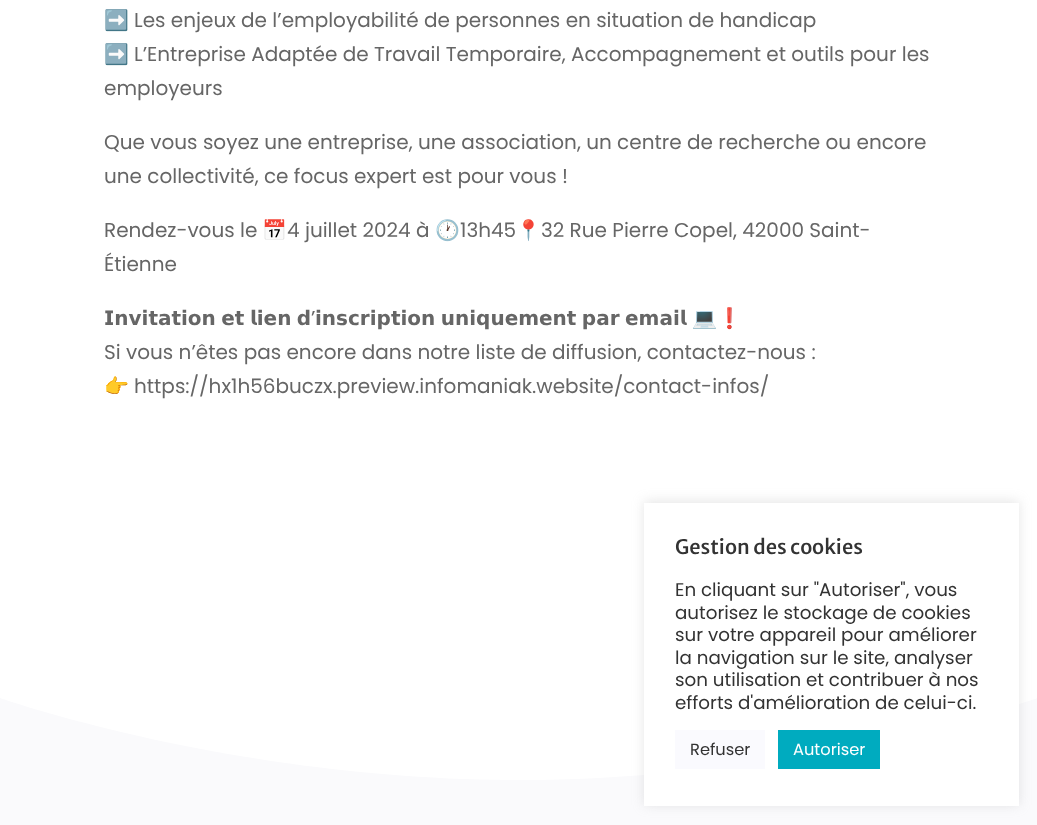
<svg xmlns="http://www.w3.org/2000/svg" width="1037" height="825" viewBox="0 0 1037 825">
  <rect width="100%" height="100%" fill="rgb(255,255,255)"/>
  <text x="104" y="27" font-family="Noto Color Emoji" font-size="20" fill="rgb(102,102,102)">➡️</text>
  <text x="134" y="27" font-family="Poppins" font-size="20" fill="rgb(102,102,102)">Les enjeux de l’employabilité de personnes en situation de handicap</text>
  <text x="104" y="61" font-family="Noto Color Emoji" font-size="20" fill="rgb(102,102,102)">➡️</text>
  <g font-family="Poppins" font-size="20" fill="rgb(102,102,102)">
    <text x="134" y="61">L’Entreprise Adaptée de Travail Temporaire, Accompagnement et outils pour les</text>
    <text x="104" y="95">employeurs</text>
    <text>
      <tspan x="104" y="149">Que vous soyez une entreprise, une association, un centre de recherche ou encore</tspan>
      <tspan x="104" y="183">une collectivité, ce focus expert est pour vous !</tspan>
    </text>
    <text x="104" y="237">Rendez-vous le</text>
  </g>
  <text x="262" y="237" font-family="Noto Color Emoji" font-size="20" fill="rgb(102,102,102)">📅</text>
  <text x="287" y="237" font-family="Poppins" font-size="20" fill="rgb(102,102,102)">4 juillet 2024 à</text>
  <text x="435" y="237" font-family="Noto Color Emoji" font-size="20" fill="rgb(102,102,102)">🕐</text>
  <text x="460" y="237" font-family="Poppins" font-size="20" fill="rgb(102,102,102)">13h45</text>
  <text x="516" y="237" font-family="Noto Color Emoji" font-size="20" fill="rgb(102,102,102)">📍</text>
  <g font-family="Poppins" font-size="20" fill="rgb(102,102,102)">
    <text x="541" y="237">32 Rue Pierre Copel, 42000 Saint-</text>
    <text x="104" y="271">Étienne</text>
  </g>
  <text x="104" y="325" word-spacing="-1.5" font-family="DejaVu Sans" font-size="20" font-weight="bold" fill="rgb(102,102,102)">𝗜𝗻𝘃𝗶𝘁𝗮𝘁𝗶𝗼𝗻 𝗲𝘁 𝗹𝗶𝗲𝗻 𝗱</text>
  <text x="311" y="325" font-family="Poppins" font-size="20" fill="rgb(102,102,102)">’</text>
  <text x="315" y="325" word-spacing="-1.5" font-family="DejaVu Sans" font-size="20" font-weight="bold" fill="rgb(102,102,102)">𝗶𝗻𝘀𝗰𝗿𝗶𝗽𝘁𝗶𝗼𝗻 𝘂𝗻𝗶𝗾𝘂𝗲𝗺𝗲𝗻𝘁 𝗽𝗮𝗿 𝗲𝗺𝗮𝗶𝗹</text>
  <text x="692" y="325" font-family="Noto Color Emoji" font-size="20" fill="rgb(102,102,102)">💻❗️</text>
  <text x="104" y="359" font-family="Poppins" font-size="20" fill="rgb(102,102,102)">Si vous n’êtes pas encore dans notre liste de diffusion, contactez-nous :</text>
  <text x="104" y="393" font-family="Noto Color Emoji" font-size="20" fill="rgb(102,102,102)">👉</text>
  <text x="134" y="393" font-family="Poppins" font-size="20" fill="rgb(102,102,102)">https://hx1h56buczx.preview.infomaniak.website/contact-infos/</text>
  <rect x="0" y="698" width="1037" height="127" fill="rgb(250,250,252)"/>
  <path d="M519 780C232 780 0 698 0 698H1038C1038 698 805 780 519 780Z" fill="rgb(255,255,255)"/>
  <rect x="644" y="501" width="375" height="304" fill="rgba(172,171,171,0.3)" filter="blur(6px)"/>
  <rect x="644" y="503" width="375" height="303" fill="rgb(255,255,255)"/>
  <text x="675" y="554" font-family="Merriweather Sans" font-size="20" font-weight="500" fill="rgb(51,51,51)">Gestion des cookies</text>
  <g font-family="Poppins" font-size="18.3" fill="rgb(51,51,51)">
    <text>
      <tspan x="675" y="596">En cliquant sur "Autoriser", vous</tspan>
      <tspan x="675" y="619">autorisez le stockage de cookies</tspan>
      <tspan x="675" y="641">sur votre appareil pour améliorer</tspan>
      <tspan x="675" y="664">la navigation sur le site, analyser</tspan>
      <tspan x="675" y="686">son utilisation et contribuer à nos</tspan>
      <tspan x="675" y="709">efforts d'amélioration de celui-ci.</tspan>
    </text>
  </g>
  <rect x="675" y="730" width="90" height="39" fill="rgb(250,250,254)"/>
  <text x="690" y="755" font-family="Poppins" font-size="16.25" fill="rgb(51,51,51)">Refuser</text>
  <rect x="778" y="730" width="102" height="39" fill="rgb(0,171,191)"/>
  <text x="793" y="755" font-family="Poppins" font-size="16.25" fill="rgb(255,255,255)">Autoriser</text>
</svg>
